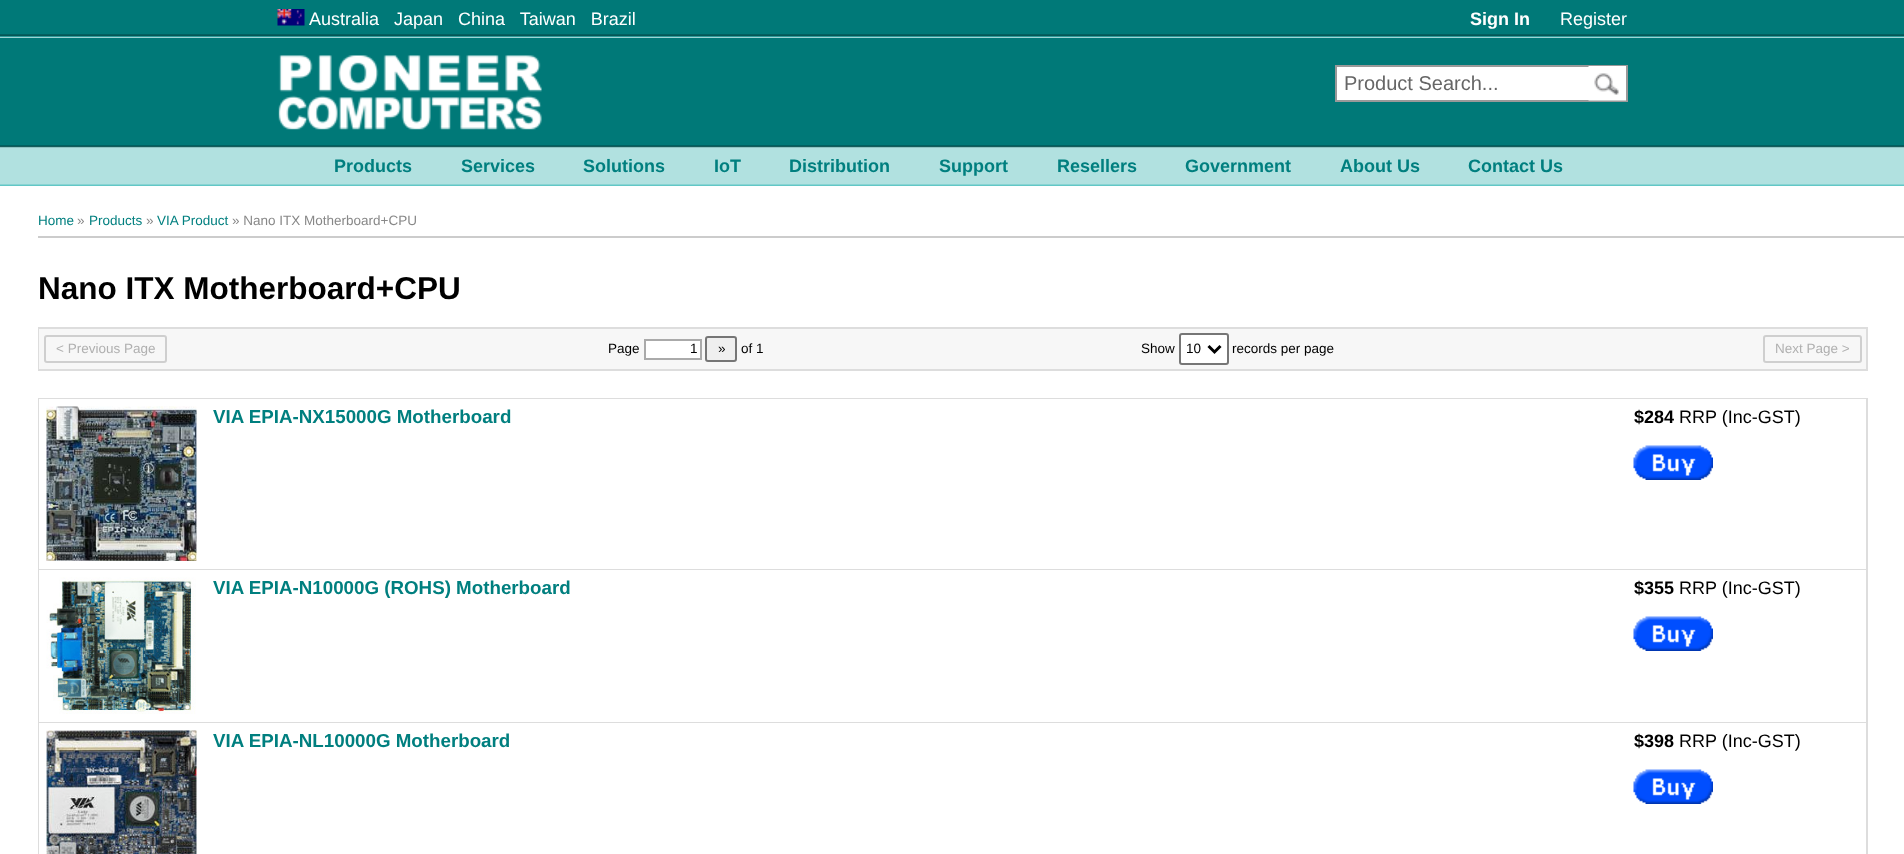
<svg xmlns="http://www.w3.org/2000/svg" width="1904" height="854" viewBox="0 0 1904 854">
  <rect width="100%" height="100%" fill="rgb(255,255,255)"/>
  <image x="0" y="0" width="1904" height="38" href="pic1.png"/>
  <image x="277" y="9" width="28" height="17" href="pic2.png"/>
  <text x="309" y="25" font-family="Liberation Sans" font-size="18" fill="rgb(255,255,255)" xml:space="preserve">Australia   Japan   China   Taiwan   Brazil</text>
  <text x="1470" y="25" font-family="Liberation Sans" font-size="18" font-weight="bold" fill="rgb(255,255,255)">Sign In</text>
  <text x="1560" y="25" font-family="Liberation Sans" font-size="18" fill="rgb(255,255,255)">Register</text>
  <rect x="0" y="38" width="1904" height="108" fill="rgb(0,121,120)"/>
  <image x="278" y="55" width="264" height="75" href="pic3.png"/>
  <rect x="1337" y="67" width="252" height="33" fill="rgb(255,255,255)"/>
  <rect x="1336" y="66" width="291" height="35" fill="none" stroke="rgb(153,153,153)" stroke-width="2"/>
  <text x="1344" y="90" font-family="Liberation Sans" font-size="20" fill="rgb(102,102,102)">Product Search...</text>
  <image x="1588" y="66" width="38" height="35" href="pic4.png"/>
  <image x="0" y="145" width="1904" height="41" href="pic5.png"/>
  <g font-family="Liberation Sans" font-size="18" font-weight="bold" fill="rgb(0,127,127)">
    <text x="334" y="172">Products</text>
    <text x="461" y="172">Services</text>
    <text x="583" y="172">Solutions</text>
    <text x="714" y="172">IoT</text>
    <text x="789" y="172">Distribution</text>
    <text x="939" y="172">Support</text>
    <text x="1057" y="172">Resellers</text>
    <text x="1185" y="172">Government</text>
    <text x="1340" y="172">About Us</text>
    <text x="1468" y="172">Contact Us</text>
  </g>
  <rect x="38" y="236" width="1866" height="2" fill="rgb(204,204,204)"/>
  <text x="38" y="225" font-family="Liberation Sans" font-size="13.5" fill="rgb(0,127,127)">Home</text>
  <text x="77" y="225" font-family="Liberation Sans" font-size="13.5" fill="rgb(136,136,136)">»</text>
  <text x="89" y="225" font-family="Liberation Sans" font-size="13.5" fill="rgb(0,127,127)">Products</text>
  <text x="146" y="225" font-family="Liberation Sans" font-size="13.5" fill="rgb(136,136,136)">»</text>
  <text x="157" y="225" font-family="Liberation Sans" font-size="13.5" fill="rgb(0,127,127)">VIA Product</text>
  <text x="232" y="225" font-family="Liberation Sans" font-size="13.5" fill="rgb(136,136,136)">» Nano ITX Motherboard+CPU</text>
  <text x="38" y="299" font-family="Liberation Sans" font-size="31.5" font-weight="bold" fill="rgb(0,0,0)">Nano ITX Motherboard+CPU</text>
  <rect x="39" y="328" width="1828" height="42" fill="none" stroke="rgb(221,221,221)" stroke-width="2"/>
  <rect x="39" y="329" width="1827" height="40" fill="rgb(247,247,247)"/>
  <rect x="45" y="336" width="121" height="26" rx="2" fill="none" stroke="rgb(207,207,207)" stroke-width="2"/>
  <text x="56" y="353" font-family="Liberation Sans" font-size="13.5" fill="rgb(176,176,176)">&lt; Previous Page</text>
  <text x="608" y="353" font-family="Liberation Sans" font-size="13.5" fill="rgb(0,0,0)">Page</text>
  <rect x="645" y="340" width="56" height="19" fill="rgb(255,255,255)" stroke="rgb(170,170,170)" stroke-width="2"/>
  <text x="690" y="353" font-family="Liberation Sans" font-size="13.5" fill="rgb(0,0,0)">1</text>
  <rect x="706" y="337" width="30" height="24" rx="2" fill="rgb(239,239,239)" stroke="rgb(118,118,118)" stroke-width="2"/>
  <g font-family="Liberation Sans" font-size="13.5" fill="rgb(0,0,0)">
    <text x="718" y="353">»</text>
    <text x="741" y="353">of 1</text>
    <text x="1141" y="353">Show</text>
  </g>
  <rect x="1180" y="334" width="48" height="30" rx="2" fill="rgb(255,255,255)" stroke="rgb(118,118,118)" stroke-width="2"/>
  <path d="M1208.5 346L1214.5 352L1220.5 346" fill="none" stroke="rgb(0,0,0)" stroke-width="3"/>
  <g font-family="Liberation Sans" font-size="13.5" fill="rgb(0,0,0)">
    <text x="1186" y="353">10</text>
    <text x="1232" y="353">records per page</text>
  </g>
  <rect x="1764" y="336" width="97" height="26" rx="2" fill="none" stroke="rgb(207,207,207)" stroke-width="2"/>
  <text x="1775" y="353" font-family="Liberation Sans" font-size="13.5" fill="rgb(176,176,176)">Next Page &gt;</text>
  <rect x="38" y="398" width="1830" height="456" fill="rgb(221,221,221)"/>
  <rect x="39" y="399" width="1827" height="170" fill="rgb(255,255,255)"/>
  <image x="46" y="406" width="151" height="155" href="pic6.png"/>
  <text x="213" y="423" font-family="Liberation Sans" font-size="18.75" font-weight="bold" fill="rgb(0,127,127)">VIA EPIA-NX15000G Motherboard</text>
  <text x="1634" y="423" font-family="Liberation Sans" font-size="18" font-weight="bold" fill="rgb(0,0,0)">$284</text>
  <text x="1679" y="423" font-family="Liberation Sans" font-size="18" fill="rgb(0,0,0)">RRP (Inc-GST)</text>
  <image x="1633" y="445" width="80" height="35" href="pic7.png"/>
  <rect x="39" y="570" width="1827" height="152" fill="rgb(255,255,255)"/>
  <image x="46" y="577" width="150" height="137" href="pic8.png"/>
  <text x="213" y="594" font-family="Liberation Sans" font-size="18.75" font-weight="bold" fill="rgb(0,127,127)">VIA EPIA-N10000G (ROHS) Motherboard</text>
  <text x="1634" y="594" font-family="Liberation Sans" font-size="18" font-weight="bold" fill="rgb(0,0,0)">$355</text>
  <text x="1679" y="594" font-family="Liberation Sans" font-size="18" fill="rgb(0,0,0)">RRP (Inc-GST)</text>
  <image x="1633" y="616" width="80" height="35" href="pic7.png"/>
  <rect x="39" y="723" width="1827" height="131" fill="rgb(255,255,255)"/>
  <image x="46" y="730" width="151" height="124" href="pic9.png"/>
  <text x="213" y="747" font-family="Liberation Sans" font-size="18.75" font-weight="bold" fill="rgb(0,127,127)">VIA EPIA-NL10000G Motherboard</text>
  <text x="1634" y="747" font-family="Liberation Sans" font-size="18" font-weight="bold" fill="rgb(0,0,0)">$398</text>
  <text x="1679" y="747" font-family="Liberation Sans" font-size="18" fill="rgb(0,0,0)">RRP (Inc-GST)</text>
  <image x="1633" y="769" width="80" height="35" href="pic7.png"/>
</svg>
